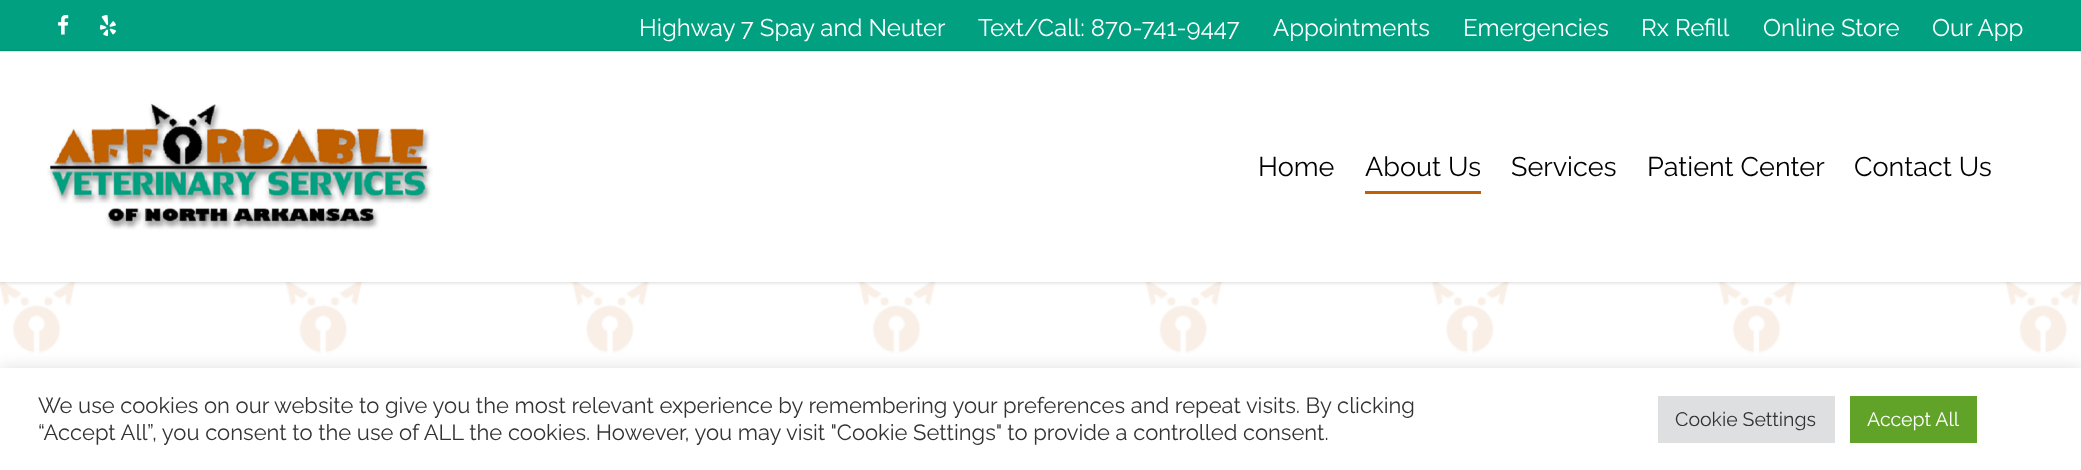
<svg xmlns="http://www.w3.org/2000/svg" width="2081" height="470" viewBox="0 0 2081 470">
  <rect width="100%" height="100%" fill="rgb(255,255,255)"/>
  <image x="0" y="282" width="2081" height="86" href="pic4.png"/>
  <rect x="0" y="50" width="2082" height="232" fill="rgba(0,0,0,0.22)" filter="blur(2px)"/>
  <rect x="0" y="0" width="2081" height="51" fill="rgb(0,160,128)"/>
  <rect x="0" y="51" width="2081" height="231" fill="rgb(255,255,255)"/>
  <rect x="0" y="50" width="2081" height="2" fill="rgba(0,0,0,0.1)"/>
  <image x="58" y="15" width="11" height="20" href="pic1.png"/>
  <image x="100" y="15" width="16" height="21" href="pic2.png"/>
  <g font-family="Raleway" font-size="24" fill="rgb(255,255,255)">
    <text x="639" y="36">Highway 7 Spay and Neuter</text>
    <text x="978" y="36">Text/Call: 870-741-9447</text>
    <text x="1273" y="36">Appointments</text>
    <text x="1463" y="36">Emergencies</text>
    <text x="1641" y="36">Rx Refill</text>
    <text x="1763" y="36">Online Store</text>
    <text x="1932" y="36">Our App</text>
  </g>
  <image x="47" y="103" width="386" height="127" href="pic3.png"/>
  <g font-family="Raleway" font-size="27" fill="rgb(0,0,0)">
    <text x="1258" y="176">Home</text>
    <text x="1365" y="176">About Us</text>
  </g>
  <rect x="1365" y="191" width="116" height="3" fill="rgb(192,96,0)"/>
  <g font-family="Raleway" font-size="27" fill="rgb(0,0,0)">
    <text x="1511" y="176">Services</text>
    <text x="1647" y="176">Patient Center</text>
    <text x="1854" y="176">Contact Us</text>
  </g>
  <rect x="0" y="366" width="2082" height="104" fill="rgba(172,171,171,0.3)" filter="blur(7.5px)"/>
  <rect x="0" y="368" width="2081" height="102" fill="rgb(255,255,255)"/>
  <g font-family="Raleway" font-size="22" fill="rgb(51,51,51)">
    <text>
      <tspan x="38" y="413">We use cookies on our website to give you the most relevant experience by remembering your preferences and repeat visits. By clicking</tspan>
      <tspan x="38" y="440">“Accept All”, you consent to the use of ALL the cookies. However, you may visit "Cookie Settings" to provide a controlled consent.</tspan>
    </text>
  </g>
  <rect x="1658" y="396" width="177" height="47" fill="rgb(222,223,224)"/>
  <text x="1675" y="426" font-family="Raleway" font-size="19.5" fill="rgb(51,51,51)">Cookie Settings</text>
  <rect x="1850" y="396" width="127" height="47" fill="rgb(97,162,41)"/>
  <text x="1867" y="426" font-family="Raleway" font-size="19.5" fill="rgb(255,255,255)">Accept All</text>
</svg>
